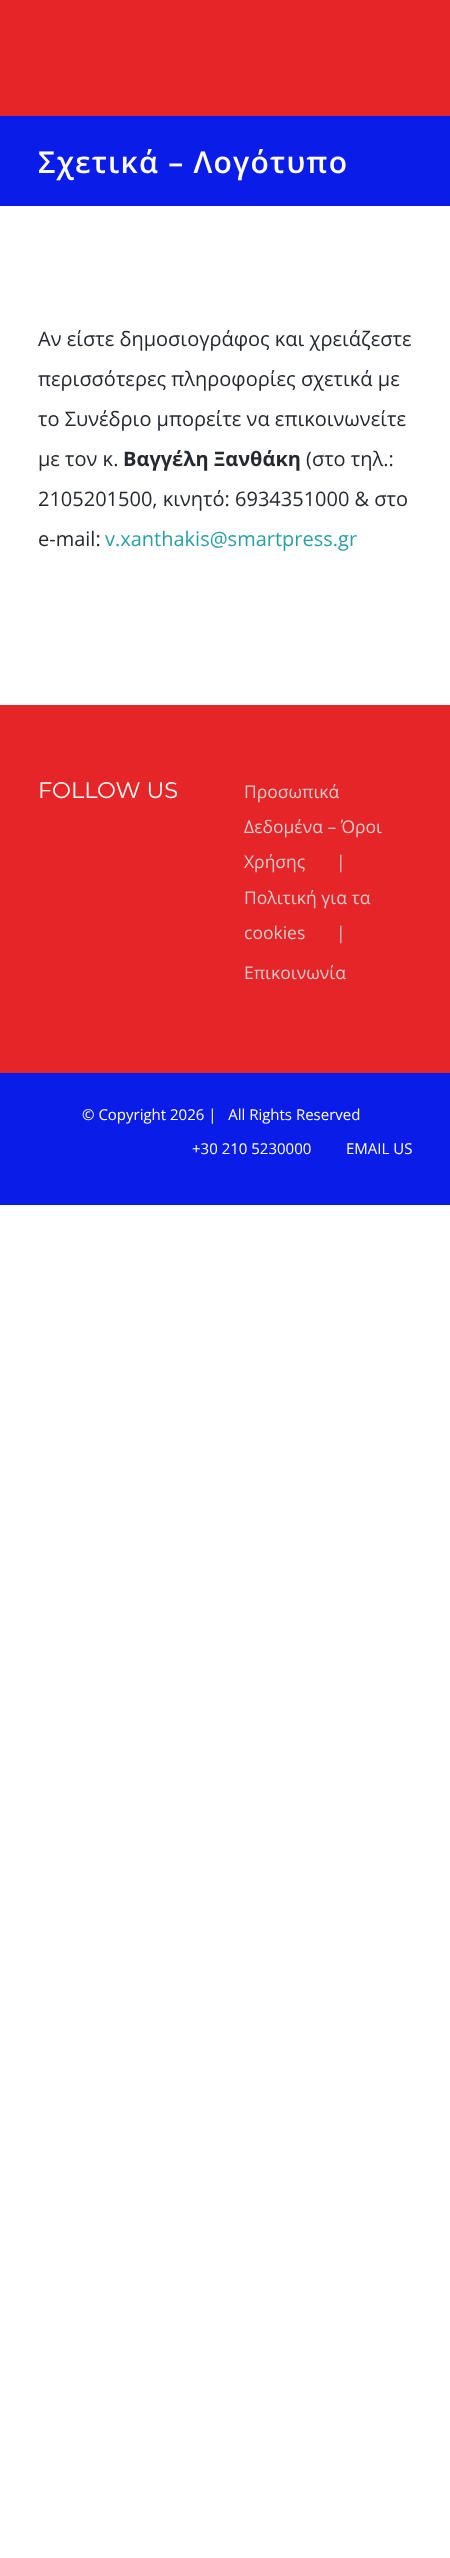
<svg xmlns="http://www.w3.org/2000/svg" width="450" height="2558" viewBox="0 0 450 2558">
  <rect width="100%" height="100%" fill="rgb(255,255,255)"/>
  <rect x="0" y="0" width="450" height="116" fill="rgb(229,37,40)"/>
  <rect x="0" y="116" width="450" height="90" fill="rgb(10,28,232)"/>
  <text x="38" y="173" font-family="Open Sans" font-size="30" font-weight="600" letter-spacing="1.25" fill="rgb(255,255,255)">Σχετικά – Λογότυπο</text>
  <g font-family="Open Sans" font-size="20" fill="rgb(36,41,48)">
    <text x="38" y="346">Αν είστε δημοσιογράφος και χρειάζεστε</text>
    <text x="38" y="386">περισσότερες πληροφορίες σχετικά με</text>
    <text x="38" y="426">το Συνέδριο μπορείτε να επικοινωνείτε</text>
    <text x="38" y="466">με τον κ.</text>
  </g>
  <text x="123" y="466" font-family="Open Sans" font-size="20" font-weight="bold" fill="rgb(36,41,48)">Βαγγέλη Ξανθάκη</text>
  <g font-family="Open Sans" font-size="20" fill="rgb(36,41,48)">
    <text x="306" y="466">(στο τηλ.:</text>
    <text x="38" y="506">2105201500, κινητό: 6934351000 &amp; στο</text>
    <text x="38" y="546">e-mail:</text>
  </g>
  <text x="105" y="546" font-family="Open Sans" font-size="20" fill="rgb(43,160,163)">v.xanthakis@smartpress.gr</text>
  <rect x="0" y="705" width="450" height="368" fill="rgb(229,37,40)"/>
  <text x="38" y="798" font-family="Montserrat" font-size="22.5" font-weight="100" fill="rgb(255,255,255)">FOLLOW US</text>
  <g font-family="Open Sans" font-size="17.5" fill="rgb(204,204,204)">
    <text x="244" y="798">Προσωπικά</text>
    <text x="244" y="833">Δεδομένα – Όροι</text>
    <text x="244" y="868">Χρήσης</text>
    <text x="336" y="868">|</text>
    <text x="244" y="904">Πολιτική για τα</text>
    <text x="244" y="939">cookies</text>
    <text x="336" y="939">|</text>
    <text x="244" y="979">Επικοινωνία</text>
  </g>
  <rect x="0" y="1073" width="450" height="132" fill="rgb(10,28,232)"/>
  <g font-family="Open Sans" font-size="15" fill="rgb(255,255,255)">
    <text x="82" y="1120" xml:space="preserve">© Copyright 2026 |   All Rights Reserved</text>
    <text x="192" y="1154">+30 210 5230000</text>
    <text x="346" y="1154">EMAIL US</text>
  </g>
</svg>
